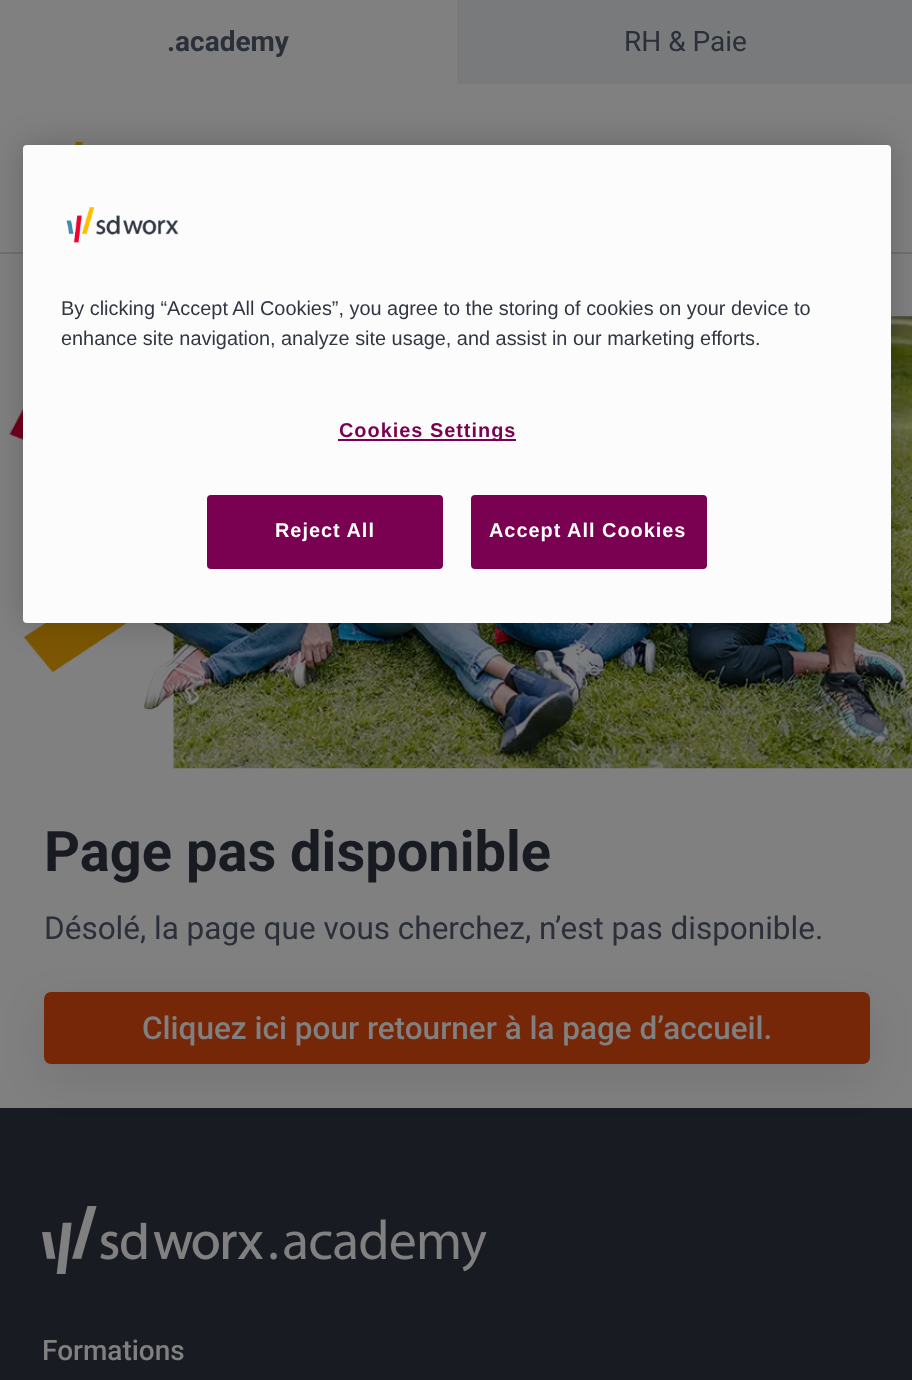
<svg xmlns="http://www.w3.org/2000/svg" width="912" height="1380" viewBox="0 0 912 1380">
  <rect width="100%" height="100%" fill="rgb(128,128,128)"/>
  <rect x="457" y="0" width="455" height="84" fill="rgb(121,122,123)"/>
  <text x="167" y="51" font-family="Roboto" font-size="28" font-weight="bold" fill="rgb(43,47,57)">.academy</text>
  <text x="624" y="51" font-family="Roboto" font-size="28" fill="rgb(43,47,57)">RH &amp; Paie</text>
  <image x="75" y="142" width="8" height="3" href="pic1.png"/>
  <rect x="0" y="252" width="912" height="2" fill="rgb(111,112,116)"/>
  <image x="9" y="316" width="903" height="453" href="pic2.png"/>
  <text x="44" y="871" font-family="Roboto" font-size="56" font-weight="bold" fill="rgb(24,27,33)">Page pas disponible</text>
  <text x="44" y="939" font-family="Roboto" font-size="31.5" fill="rgb(43,47,57)">Désolé, la page que vous cherchez, n’est pas disponible.</text>
  <rect x="0" y="1108" width="912" height="272" fill="rgb(24,27,33)"/>
  <rect x="44" y="1006" width="826" height="72" rx="7" fill="rgba(8,9,11,0.1)" filter="blur(21px)"/>
  <rect x="45" y="993" width="824" height="70" rx="6" fill="rgb(117,39,8)" stroke="rgb(117,39,8)" stroke-width="2"/>
  <text x="142" y="1039" font-family="Roboto" font-size="31.5" font-weight="500" fill="rgb(128,128,128)">Cliquez ici pour retourner à la page d’accueil.</text>
  <image x="42" y="1206" width="445" height="68" href="pic3.png"/>
  <text x="42" y="1360" font-family="Roboto" font-size="28" font-weight="500" fill="rgb(128,128,128)">Formations</text>
  <rect x="23" y="145" width="868" height="478" rx="4" fill="rgba(0,0,0,0.2)" filter="blur(16px)"/>
  <rect x="23" y="145" width="868" height="478" rx="4" fill="rgb(252,252,252)"/>
  <image x="66" y="206" width="113" height="37" href="pic4.png"/>
  <g font-family="Liberation Sans" font-size="19.9" fill="rgb(48,54,66)">
    <text>
      <tspan x="61" y="315">By clicking “Accept All Cookies”, you agree to the storing of cookies on your device to</tspan>
      <tspan x="61" y="345">enhance site navigation, analyze site usage, and assist in our marketing efforts.</tspan>
    </text>
  </g>
  <rect x="338" y="439" width="178" height="2" fill="rgb(122,0,81)"/>
  <text x="339" y="437" font-family="Liberation Sans" font-size="19.9" font-weight="bold" letter-spacing="1" fill="rgb(122,0,81)">Cookies Settings</text>
  <rect x="208" y="496" width="234" height="72" rx="3" fill="rgb(122,0,81)" stroke="rgb(122,0,81)" stroke-width="2"/>
  <text x="275" y="537" font-family="Liberation Sans" font-size="19.9" font-weight="bold" letter-spacing="1" fill="rgb(255,255,255)">Reject All</text>
  <rect x="472" y="496" width="234" height="72" rx="3" fill="rgb(122,0,81)" stroke="rgb(122,0,81)" stroke-width="2"/>
  <text x="489" y="537" font-family="Liberation Sans" font-size="19.9" font-weight="bold" letter-spacing="1" fill="rgb(255,255,255)">Accept All Cookies</text>
</svg>
